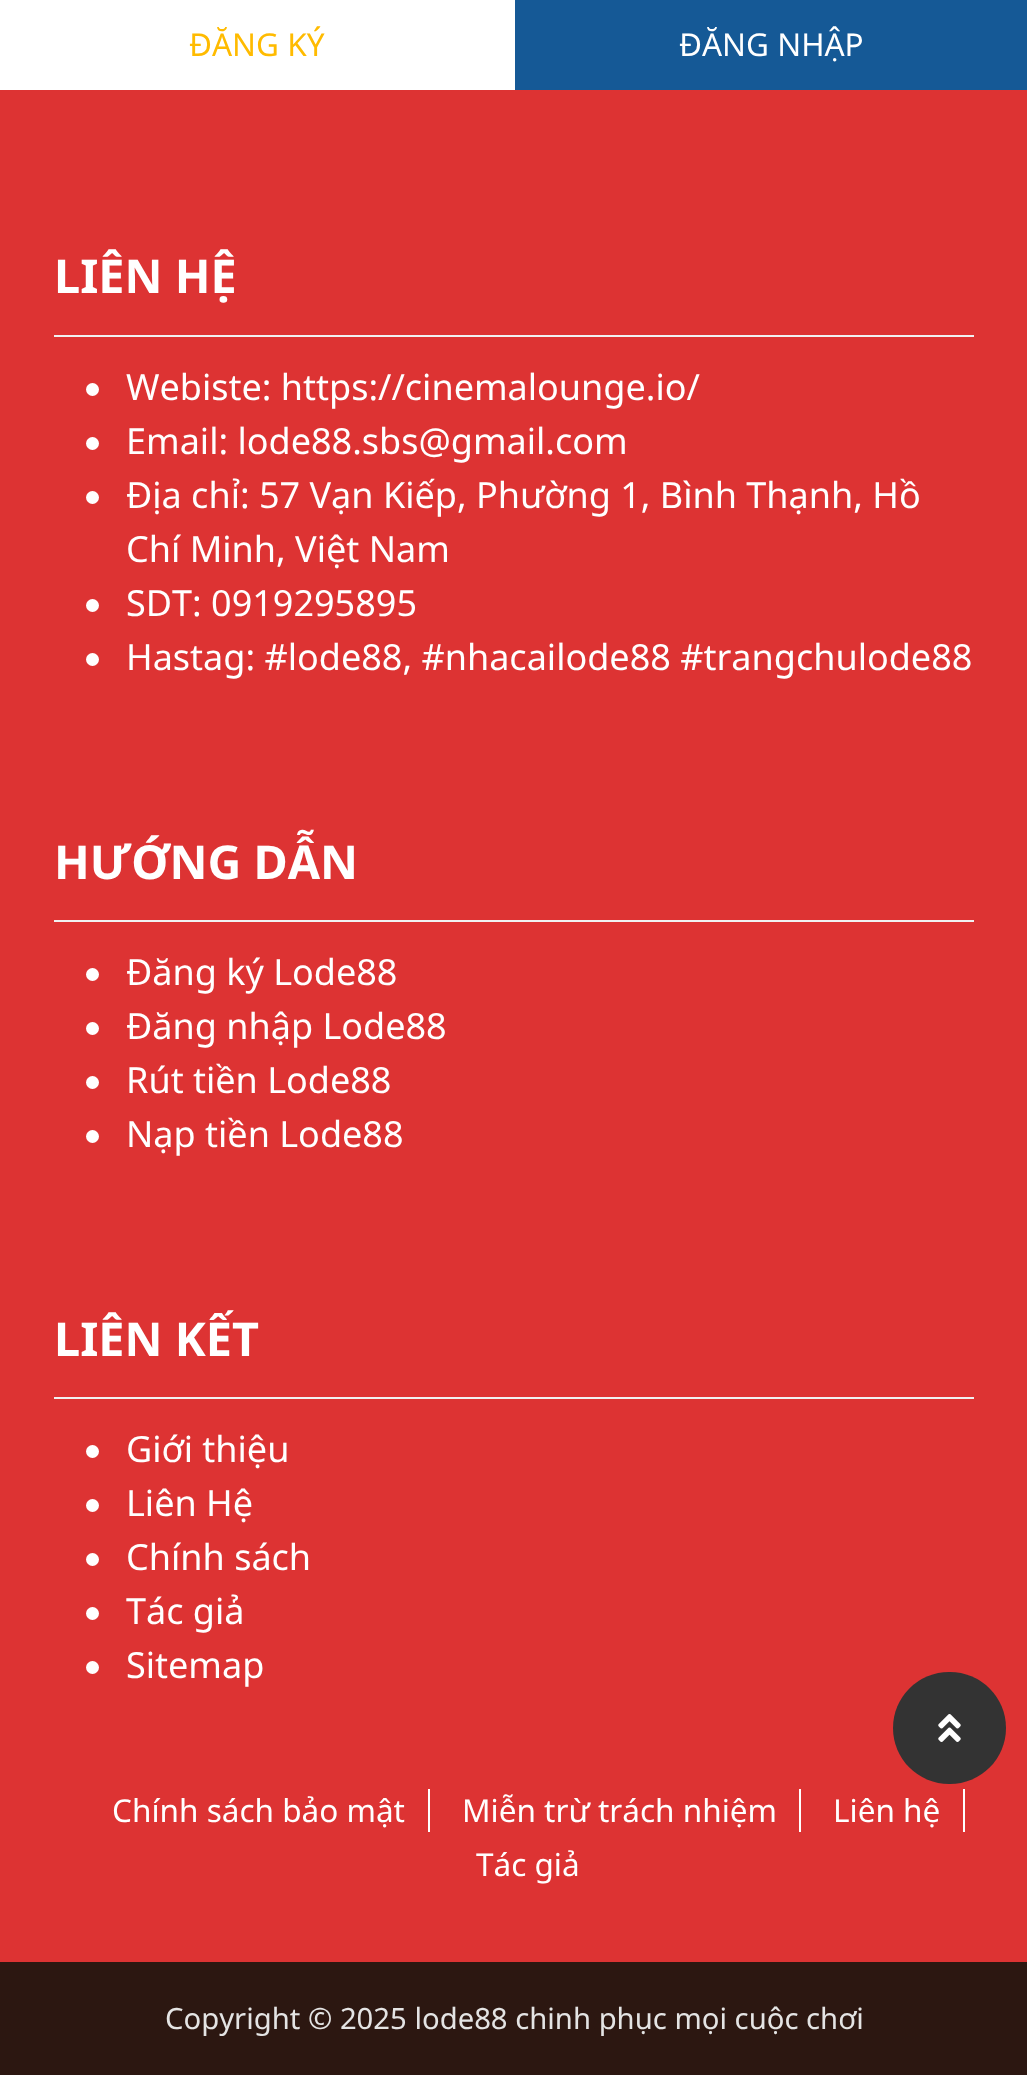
<svg xmlns="http://www.w3.org/2000/svg" width="1027" height="2075" viewBox="0 0 1027 2075">
  <style>*{font-kerning:none!important;font-variant-ligatures:none!important}</style>
  <rect width="100%" height="100%" fill="rgb(221,51,51)"/>
  <rect x="0" y="0" width="515" height="90" fill="rgb(255,255,255)"/>
  <text x="189" y="56" font-family="Noto Sans" font-size="31.5" fill="rgb(255,187,0)">ĐĂNG KÝ</text>
  <rect x="515" y="0" width="512" height="90" fill="rgb(21,89,150)"/>
  <text x="679" y="56" font-family="Noto Sans" font-size="31.5" fill="rgb(255,255,255)">ĐĂNG NHẬP</text>
  <rect x="54" y="335" width="920" height="2" fill="rgb(241,241,241)"/>
  <text x="54" y="293" font-family="Noto Sans" font-size="46.75" font-weight="bold" fill="rgb(255,255,255)">LIÊN HỆ</text>
  <circle cx="92.5" cy="389.5" r="6.5" fill="rgb(255,255,255)"/>
  <text x="126" y="400" font-family="Noto Sans" font-size="36" fill="rgb(255,255,255)">Webiste: https://cinemalounge.io/</text>
  <circle cx="92.5" cy="443.5" r="6.5" fill="rgb(255,255,255)"/>
  <text x="126" y="454" font-family="Noto Sans" font-size="36" fill="rgb(255,255,255)">Email: lode88.sbs@gmail.com</text>
  <circle cx="92.5" cy="497.5" r="6.5" fill="rgb(255,255,255)"/>
  <g font-family="Noto Sans" font-size="36" fill="rgb(255,255,255)">
    <text>
      <tspan x="126" y="508">Địa chỉ: 57 Vạn Kiếp, Phường 1, Bình Thạnh, Hồ</tspan>
      <tspan x="126" y="562">Chí Minh, Việt Nam</tspan>
    </text>
  </g>
  <circle cx="92.5" cy="605.5" r="6.5" fill="rgb(255,255,255)"/>
  <text x="126" y="616" font-family="Noto Sans" font-size="36" fill="rgb(255,255,255)">SDT: 0919295895</text>
  <circle cx="92.5" cy="659.5" r="6.5" fill="rgb(255,255,255)"/>
  <text x="126" y="670" font-family="Noto Sans" font-size="36" fill="rgb(255,255,255)">Hastag: #lode88, #nhacailode88 #trangchulode88</text>
  <rect x="54" y="920" width="920" height="2" fill="rgb(241,241,241)"/>
  <text x="54" y="879" font-family="Noto Sans" font-size="46.75" font-weight="bold" fill="rgb(255,255,255)">HƯỚNG DẪN</text>
  <circle cx="92.5" cy="974.5" r="6.5" fill="rgb(255,255,255)"/>
  <text x="126" y="985" font-family="Noto Sans" font-size="36" fill="rgb(255,255,255)">Đăng ký Lode88</text>
  <circle cx="92.5" cy="1028.5" r="6.5" fill="rgb(255,255,255)"/>
  <text x="126" y="1039" font-family="Noto Sans" font-size="36" fill="rgb(255,255,255)">Đăng nhập Lode88</text>
  <circle cx="92.5" cy="1082.5" r="6.5" fill="rgb(255,255,255)"/>
  <text x="126" y="1093" font-family="Noto Sans" font-size="36" fill="rgb(255,255,255)">Rút tiền Lode88</text>
  <circle cx="92.5" cy="1136.5" r="6.5" fill="rgb(255,255,255)"/>
  <text x="126" y="1147" font-family="Noto Sans" font-size="36" fill="rgb(255,255,255)">Nạp tiền Lode88</text>
  <rect x="54" y="1397" width="920" height="2" fill="rgb(241,241,241)"/>
  <text x="54" y="1356" font-family="Noto Sans" font-size="46.75" font-weight="bold" fill="rgb(255,255,255)">LIÊN KẾT</text>
  <circle cx="92.5" cy="1451.5" r="6.5" fill="rgb(255,255,255)"/>
  <text x="126" y="1462" font-family="Noto Sans" font-size="36" fill="rgb(255,255,255)">Giới thiệu</text>
  <circle cx="92.5" cy="1505.5" r="6.5" fill="rgb(255,255,255)"/>
  <text x="126" y="1516" font-family="Noto Sans" font-size="36" fill="rgb(255,255,255)">Liên Hệ</text>
  <circle cx="92.5" cy="1559.5" r="6.5" fill="rgb(255,255,255)"/>
  <text x="126" y="1570" font-family="Noto Sans" font-size="36" fill="rgb(255,255,255)">Chính sách</text>
  <circle cx="92.5" cy="1613.5" r="6.5" fill="rgb(255,255,255)"/>
  <text x="126" y="1624" font-family="Noto Sans" font-size="36" fill="rgb(255,255,255)">Tác giả</text>
  <circle cx="92.5" cy="1667.5" r="6.5" fill="rgb(255,255,255)"/>
  <text x="126" y="1678" font-family="Noto Sans" font-size="36" fill="rgb(255,255,255)">Sitemap</text>
  <text x="112" y="1822" font-family="Noto Sans" font-size="31.5" fill="rgb(255,255,255)">Chính sách bảo mật</text>
  <rect x="428" y="1789" width="2" height="43" fill="rgb(255,255,255)"/>
  <text x="462" y="1822" font-family="Noto Sans" font-size="31.5" fill="rgb(255,255,255)">Miễn trừ trách nhiệm</text>
  <rect x="799" y="1789" width="2" height="43" fill="rgb(255,255,255)"/>
  <text x="833" y="1822" font-family="Noto Sans" font-size="31.5" fill="rgb(255,255,255)">Liên hệ</text>
  <rect x="963" y="1789" width="2" height="43" fill="rgb(255,255,255)"/>
  <text x="476" y="1876" font-family="Noto Sans" font-size="31.5" fill="rgb(255,255,255)">Tác giả</text>
  <rect x="0" y="1962" width="1027" height="113" fill="rgb(44,23,17)"/>
  <text x="165" y="2029" font-family="Noto Sans" font-size="29.25" fill="rgb(228,228,228)">Copyright © 2025 lode88 chinh phục mọi cuộc chơi</text>
  <rect x="893" y="1672" width="113" height="112" rx="56" fill="rgb(51,51,51)"/>
  <image x="938" y="1714" width="23" height="28" href="pic1.png"/>
</svg>
